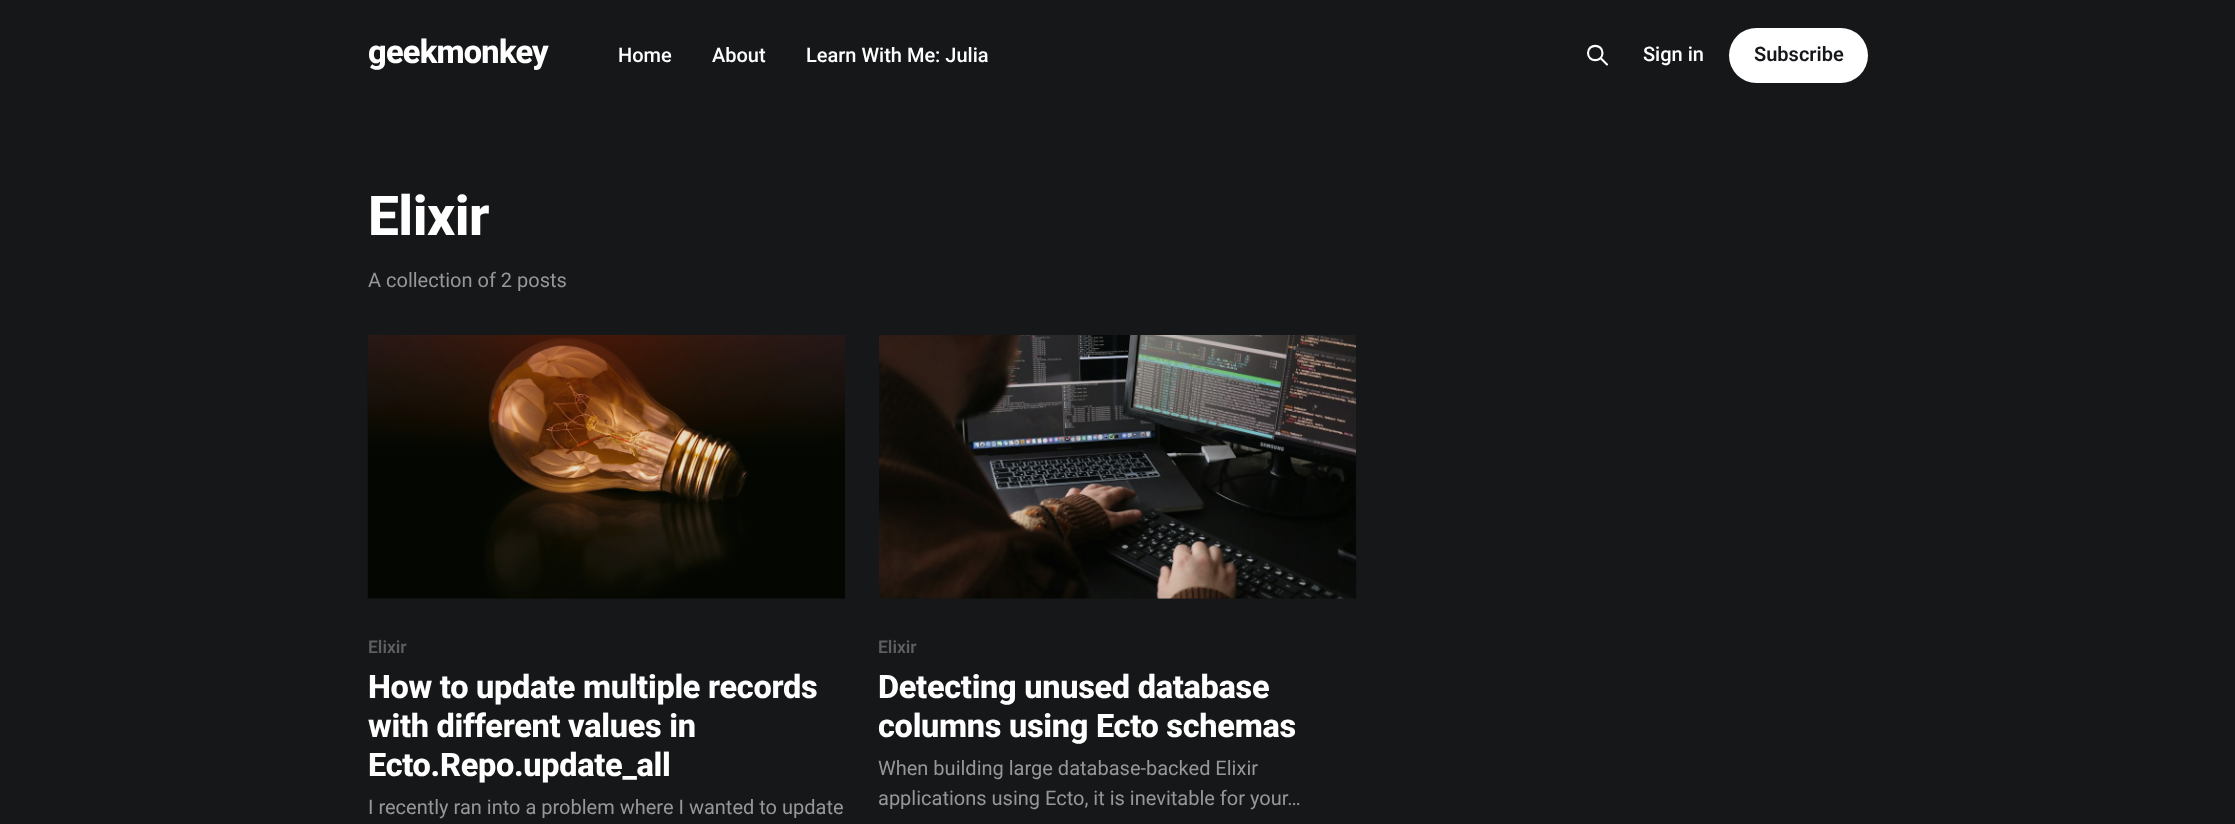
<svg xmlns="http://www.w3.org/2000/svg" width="2235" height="824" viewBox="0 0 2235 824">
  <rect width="100%" height="100%" fill="rgb(21,23,25)"/>
  <text x="368" y="63" font-family="Roboto" font-size="32.5" font-weight="800" letter-spacing="-0.75" fill="rgb(255,255,255)">geekmonkey</text>
  <g font-family="Roboto" font-size="20" font-weight="500" fill="rgb(255,255,255)">
    <text x="618" y="62">Home</text>
    <text x="712" y="62">About</text>
    <text x="806" y="62">Learn With Me: Julia</text>
  </g>
  <path d="M1607 64.5L1600.5 58M1602.5 53C1602.5 62.5 1588 62.5 1588 53C1588 43.5 1602.5 43.5 1602.5 53Z" fill="none" stroke="rgb(255,255,255)" stroke-width="2.1" stroke-linecap="round" stroke-linejoin="round"/>
  <text x="1643" y="61" font-family="Roboto" font-size="20" font-weight="500" fill="rgb(255,255,255)">Sign in</text>
  <rect x="1729" y="28" width="139" height="55" rx="27.5" fill="rgb(255,255,255)"/>
  <text x="1754" y="61" font-family="Roboto" font-size="20" font-weight="600" fill="rgb(21,23,26)">Subscribe</text>
  <text x="368" y="235" font-family="Roboto" font-size="55" font-weight="800" letter-spacing="-0.5" fill="rgb(255,255,255)">Elixir</text>
  <text x="368" y="287" font-family="Roboto" font-size="20" fill="rgb(151,151,151)">A collection of 2 posts</text>
  <image x="367" y="335" width="478" height="264" href="pic1.png"/>
  <text x="368" y="653" font-family="Roboto" font-size="17.5" font-weight="600" fill="rgb(95,95,95)">Elixir</text>
  <g font-family="Roboto" font-size="32.5" font-weight="800" letter-spacing="-0.3" fill="rgb(255,255,255)">
    <text>
      <tspan x="368" y="698">How to update multiple records</tspan>
      <tspan x="368" y="737">with different values in</tspan>
      <tspan x="368" y="776">Ecto.Repo.update_all</tspan>
    </text>
  </g>
  <text x="368" y="814" font-family="Roboto" font-size="20" fill="rgb(151,151,151)">I recently ran into a problem where I wanted to update</text>
  <image x="879" y="335" width="478" height="264" href="pic2.png"/>
  <text x="878" y="653" font-family="Roboto" font-size="17.5" font-weight="600" fill="rgb(95,95,95)">Elixir</text>
  <g font-family="Roboto" font-size="32.5" font-weight="800" letter-spacing="-0.3" fill="rgb(255,255,255)">
    <text>
      <tspan x="878" y="698">Detecting unused database</tspan>
      <tspan x="878" y="737">columns using Ecto schemas</tspan>
    </text>
  </g>
  <g font-family="Roboto" font-size="20" fill="rgb(151,151,151)">
    <text>
      <tspan x="878" y="775">When building large database-backed Elixir</tspan>
      <tspan x="878" y="805">applications using Ecto, it is inevitable for your…</tspan>
    </text>
  </g>
</svg>
